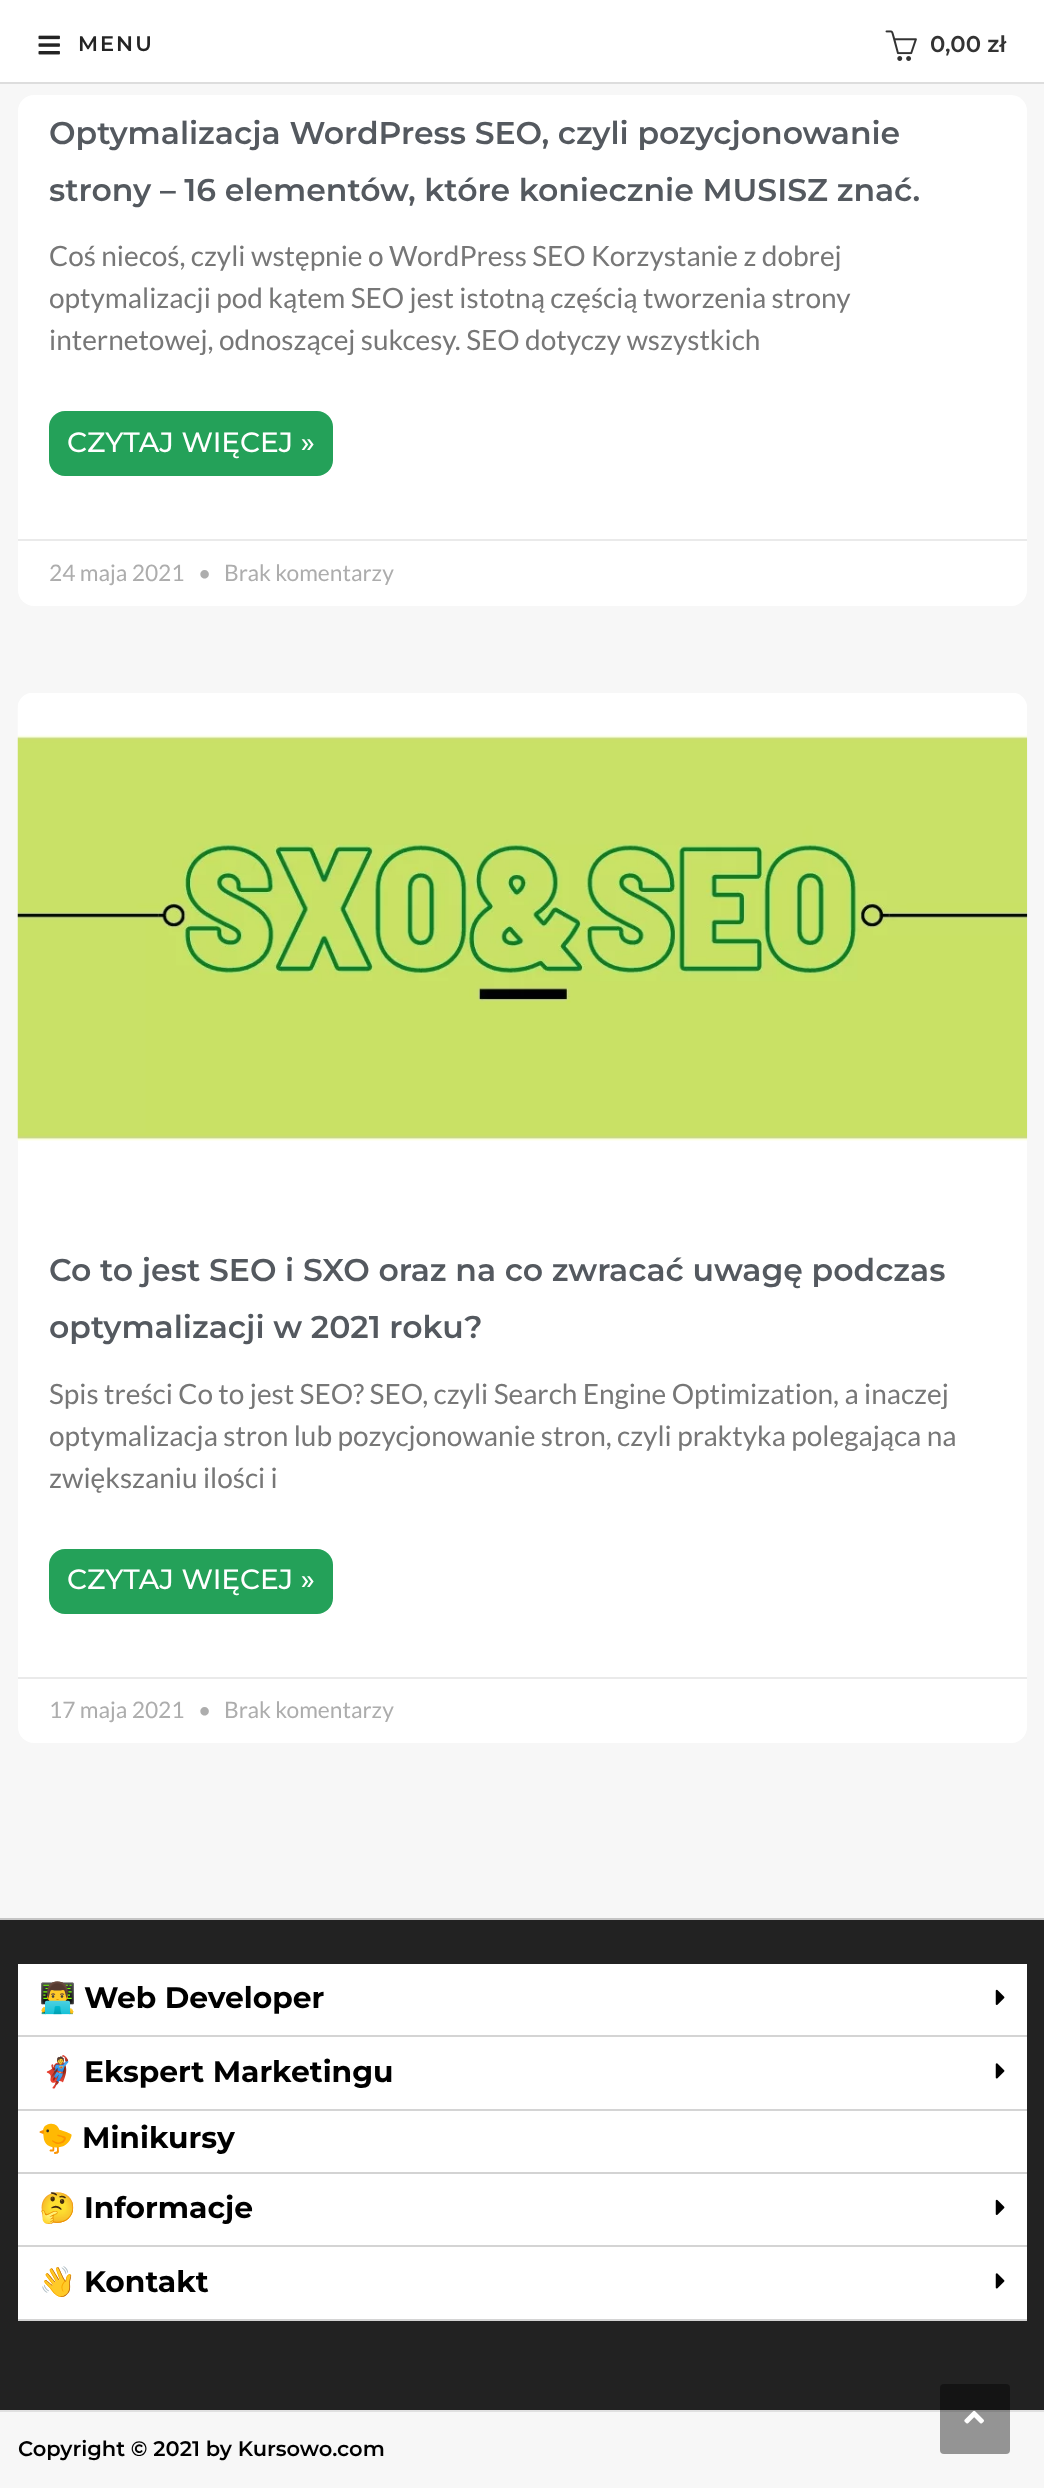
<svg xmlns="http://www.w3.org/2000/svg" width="1044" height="2488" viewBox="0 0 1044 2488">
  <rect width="100%" height="100%" fill="rgb(247,247,247)"/>
  <rect x="0" y="0" width="1044" height="82" fill="rgb(255,255,255)"/>
  <rect x="0" y="82" width="1044" height="2" fill="rgb(221,221,221)"/>
  <image x="38" y="35" width="22" height="20" href="pic1.png"/>
  <text x="78" y="51" font-family="Montserrat" font-size="21" font-weight="600" letter-spacing="2" fill="rgb(36,36,36)">MENU</text>
  <image x="885" y="30" width="32" height="31" href="pic2.png"/>
  <text x="930" y="52" font-family="Montserrat" font-size="22.75" font-weight="600" fill="rgb(51,51,51)">0,00 zł</text>
  <rect x="18" y="95" width="1009" height="511" rx="16" fill="rgb(255,255,255)"/>
  <g font-family="Montserrat" font-size="31.5" font-weight="600" fill="rgb(84,89,95)">
    <text>
      <tspan x="49" y="144">Optymalizacja WordPress SEO, czyli pozycjonowanie</tspan>
      <tspan x="49" y="201">strony – 16 elementów, które koniecznie MUSISZ znać.</tspan>
    </text>
  </g>
  <g font-family="Lato" font-size="28" fill="rgb(119,119,119)">
    <text>
      <tspan x="49" y="266">Coś niecoś, czyli wstępnie o WordPress SEO Korzystanie z dobrej</tspan>
      <tspan x="49" y="308">optymalizacji pod kątem SEO jest istotną częścią tworzenia strony</tspan>
      <tspan x="49" y="350">internetowej, odnoszącej sukcesy. SEO dotyczy wszystkich</tspan>
    </text>
  </g>
  <rect x="49" y="411" width="284" height="65" rx="16" fill="rgb(36,161,89)"/>
  <text x="67" y="452" font-family="Montserrat" font-size="28" font-weight="500" fill="rgb(255,255,255)">CZYTAJ WIĘCEJ »</text>
  <rect x="18" y="539" width="1009" height="2" fill="rgb(234,234,234)"/>
  <g font-family="Lato" font-size="22.75" fill="rgb(173,173,173)">
    <text x="49" y="581">24 maja 2021</text>
    <text x="198" y="581">•</text>
    <text x="224" y="581">Brak komentarzy</text>
  </g>
  <rect x="18" y="693" width="1009" height="1050" rx="16" fill="rgb(255,255,255)"/>
  <image x="17" y="693" width="1011" height="448" href="pic3.png"/>
  <g font-family="Montserrat" font-size="31.5" font-weight="600" fill="rgb(84,89,95)">
    <text>
      <tspan x="49" y="1281">Co to jest SEO i SXO oraz na co zwracać uwagę podczas</tspan>
      <tspan x="49" y="1338">optymalizacji w 2021 roku?</tspan>
    </text>
  </g>
  <g font-family="Lato" font-size="28" fill="rgb(119,119,119)">
    <text>
      <tspan x="49" y="1404">Spis treści Co to jest SEO? SEO, czyli Search Engine Optimization, a inaczej</tspan>
      <tspan x="49" y="1446">optymalizacja stron lub pozycjonowanie stron, czyli praktyka polegająca na</tspan>
      <tspan x="49" y="1488">zwiększaniu ilości i</tspan>
    </text>
  </g>
  <rect x="49" y="1549" width="284" height="65" rx="16" fill="rgb(36,161,89)"/>
  <text x="67" y="1589" font-family="Montserrat" font-size="28" font-weight="500" fill="rgb(255,255,255)">CZYTAJ WIĘCEJ »</text>
  <rect x="18" y="1677" width="1009" height="2" fill="rgb(234,234,234)"/>
  <g font-family="Lato" font-size="22.75" fill="rgb(173,173,173)">
    <text x="49" y="1718">17 maja 2021</text>
    <text x="198" y="1718">•</text>
    <text x="224" y="1718">Brak komentarzy</text>
  </g>
  <rect x="0" y="1920" width="1044" height="490" fill="rgb(34,34,34)"/>
  <rect x="0" y="1918" width="1044" height="2" fill="rgb(197,197,197)"/>
  <rect x="18" y="1964" width="1009" height="71" fill="rgb(255,255,255)"/>
  <rect x="18" y="2035" width="1009" height="2" fill="rgb(212,212,212)"/>
  <text x="39" y="2008" font-family="Noto Color Emoji" font-size="29.75" font-weight="bold" fill="rgb(0,0,0)">👨‍💻</text>
  <text x="84" y="2008" font-family="Montserrat" font-size="29.75" font-weight="bold" fill="rgb(0,0,0)">Web Developer</text>
  <image x="995" y="1989" width="10" height="16" href="pic4.png"/>
  <rect x="18" y="2037" width="1009" height="72" fill="rgb(255,255,255)"/>
  <rect x="18" y="2109" width="1009" height="2" fill="rgb(212,212,212)"/>
  <text x="39" y="2082" font-family="Noto Color Emoji" font-size="29.75" font-weight="bold" fill="rgb(0,0,0)">🦸</text>
  <text x="84" y="2082" font-family="Montserrat" font-size="29.75" font-weight="bold" fill="rgb(0,0,0)">Ekspert Marketingu</text>
  <image x="995" y="2063" width="10" height="16" href="pic5.png"/>
  <rect x="18" y="2111" width="1009" height="61" fill="rgb(255,255,255)"/>
  <rect x="18" y="2172" width="1009" height="2" fill="rgb(211,211,211)"/>
  <text x="37" y="2148" font-family="Noto Color Emoji" font-size="29.75" font-weight="bold" fill="rgb(0,0,0)">🐤</text>
  <text x="82" y="2148" font-family="Montserrat" font-size="29.75" font-weight="bold" fill="rgb(0,0,0)">Minikursy</text>
  <rect x="18" y="2174" width="1009" height="71" fill="rgb(255,255,255)"/>
  <rect x="18" y="2245" width="1009" height="2" fill="rgb(212,212,212)"/>
  <text x="39" y="2218" font-family="Noto Color Emoji" font-size="29.75" font-weight="bold" fill="rgb(0,0,0)">🤔</text>
  <text x="84" y="2218" font-family="Montserrat" font-size="29.75" font-weight="bold" fill="rgb(0,0,0)">Informacje</text>
  <image x="995" y="2199" width="10" height="16" href="pic4.png"/>
  <rect x="18" y="2247" width="1009" height="72" fill="rgb(255,255,255)"/>
  <rect x="18" y="2319" width="1009" height="2" fill="rgb(212,212,212)"/>
  <text x="39" y="2292" font-family="Noto Color Emoji" font-size="29.75" font-weight="bold" fill="rgb(0,0,0)">👋</text>
  <text x="84" y="2292" font-family="Montserrat" font-size="29.75" font-weight="bold" fill="rgb(0,0,0)">Kontakt</text>
  <image x="995" y="2273" width="10" height="16" href="pic5.png"/>
  <rect x="0" y="2410" width="1044" height="2" fill="rgb(224,224,224)"/>
  <text x="18" y="2456" font-family="Montserrat" font-size="21" font-weight="600" fill="rgb(0,0,0)">Copyright © 2021 by Kursowo.com</text>
  <rect x="940" y="2384" width="70" height="70" rx="4" fill="rgba(0,0,0,0.4)"/>
  <image x="964" y="2410" width="20" height="14" href="pic6.png"/>
</svg>
